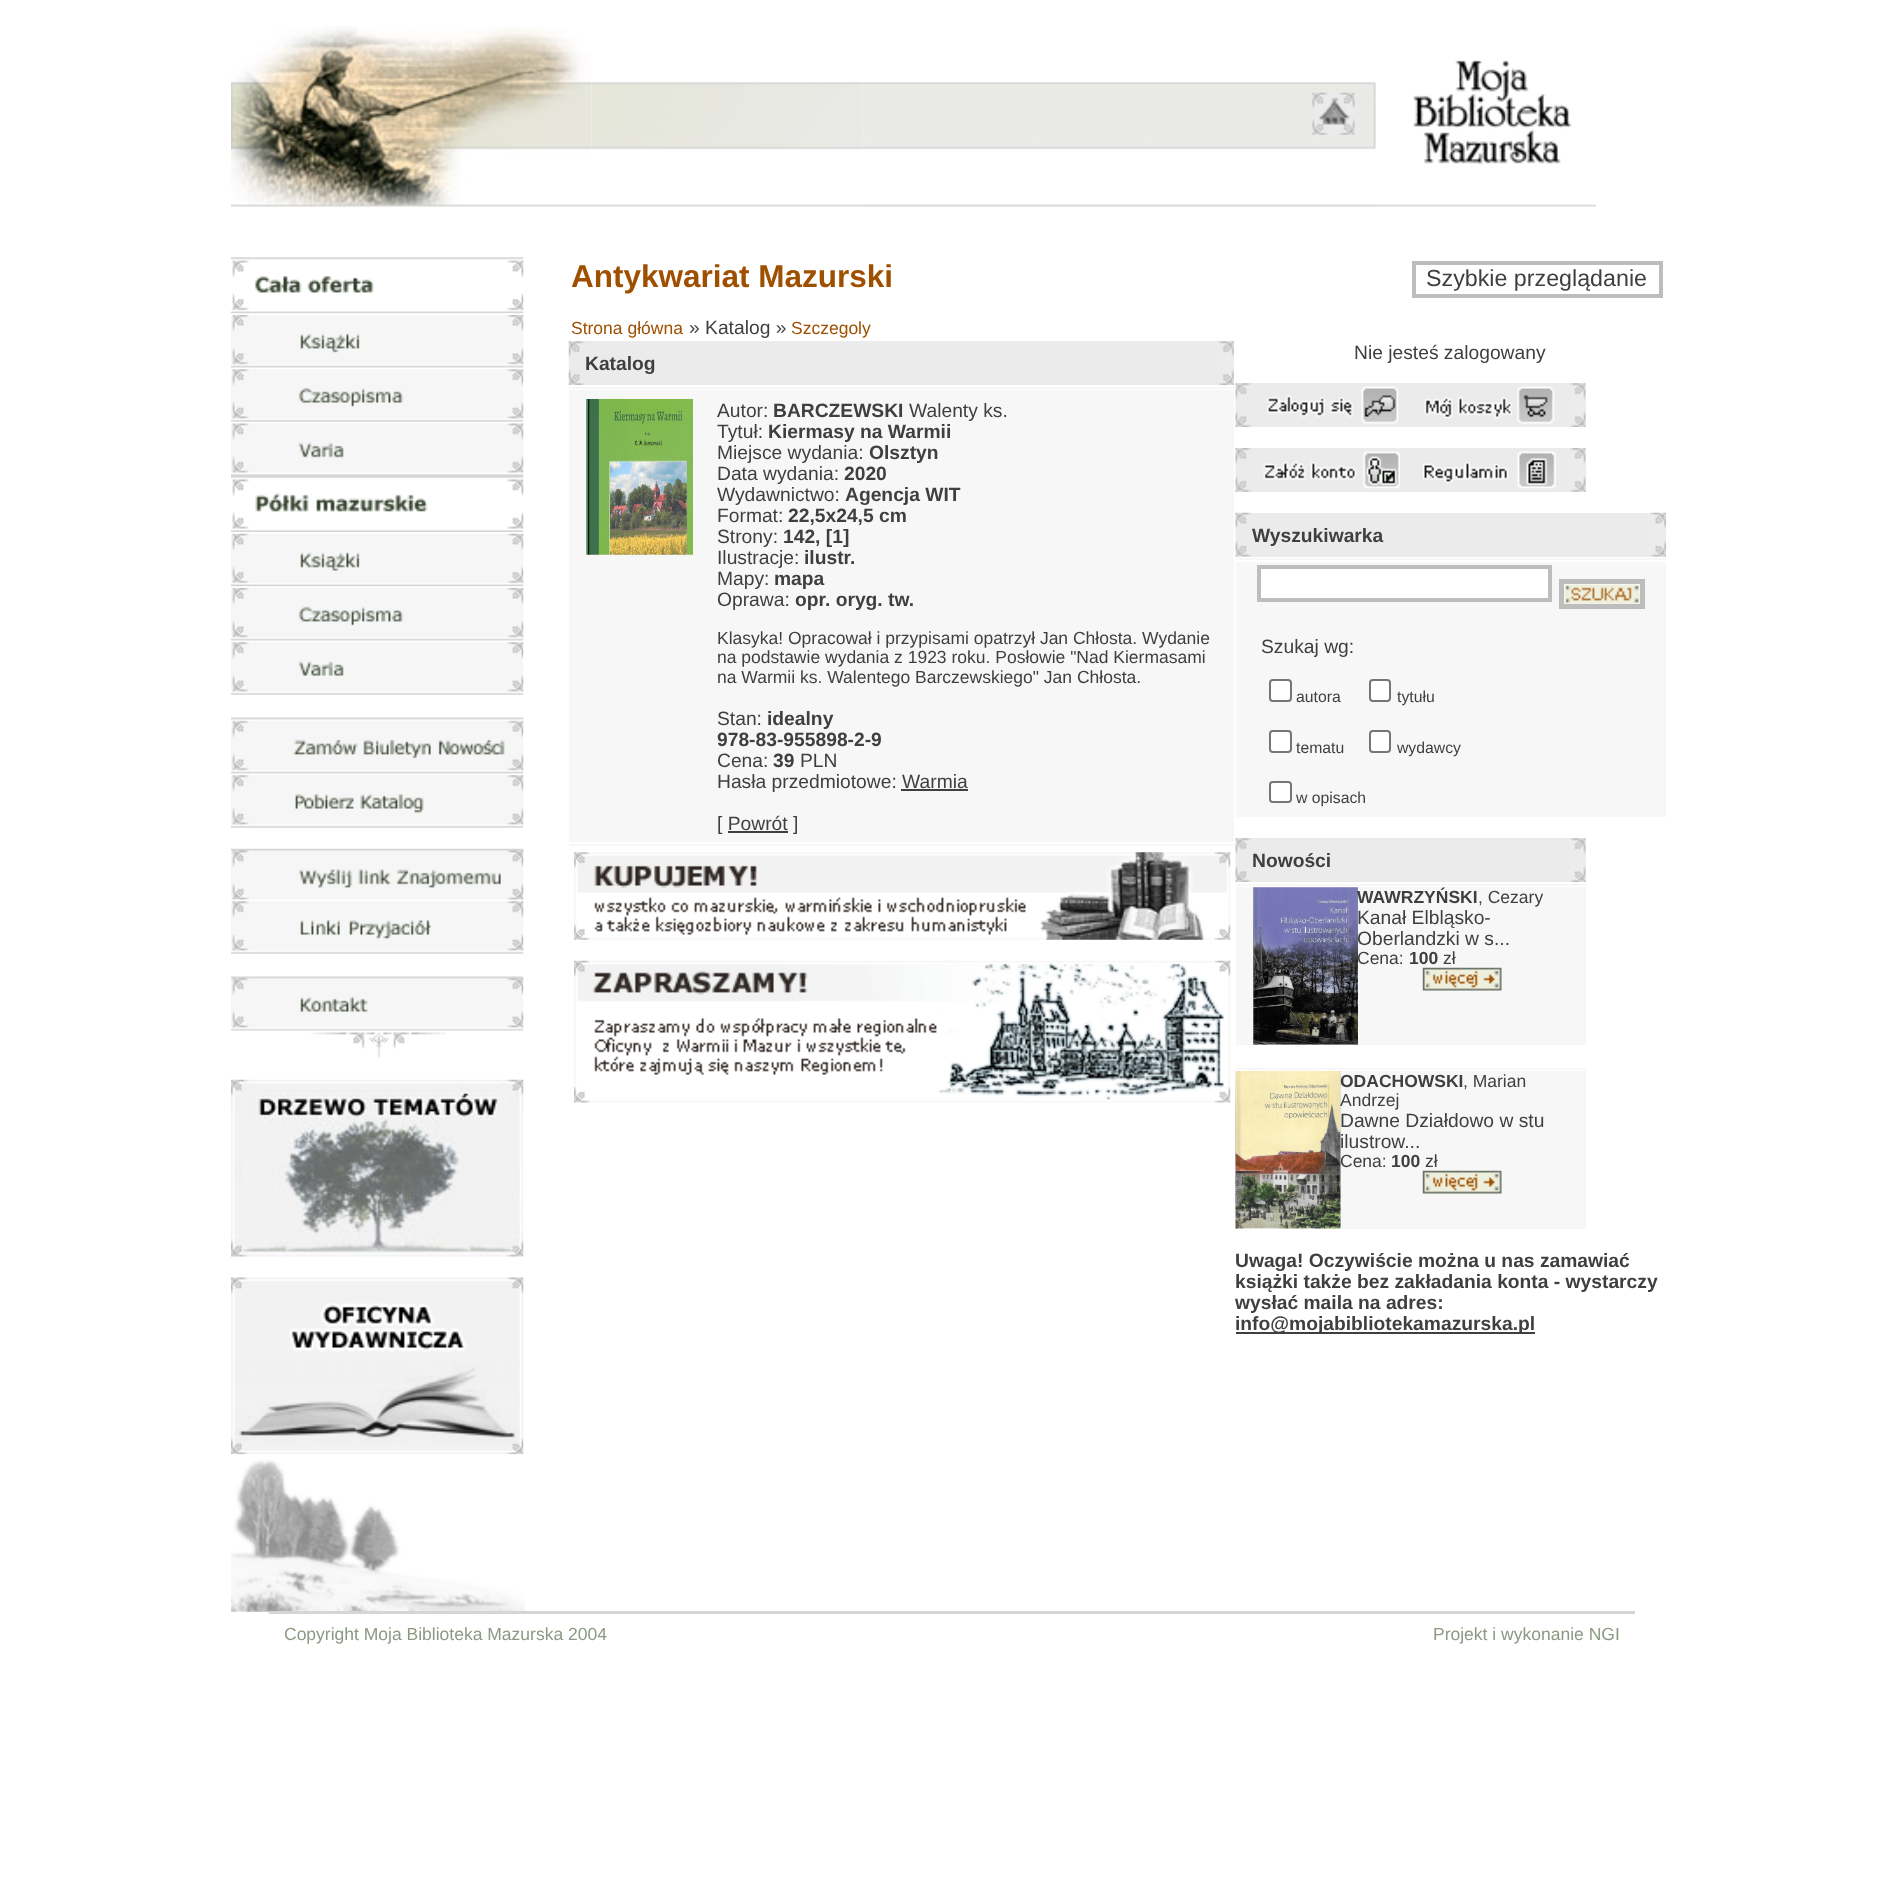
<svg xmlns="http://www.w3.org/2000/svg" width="1903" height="1899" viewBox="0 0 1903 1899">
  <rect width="100%" height="100%" fill="rgb(255,255,255)"/>
  <image x="231" y="26" width="361" height="182" href="pic1.png"/>
  <image x="862" y="82" width="510" height="125" href="pic3.png"/>
  <image x="591" y="82" width="272" height="125" href="pic2.png"/>
  <image x="1312" y="92" width="43" height="43" href="pic4.png"/>
  <image x="1372" y="60" width="224" height="147" href="pic5.png"/>
  <image x="231" y="257" width="293" height="57" href="pic6.png"/>
  <image x="231" y="315" width="293" height="53" href="pic7.png"/>
  <image x="231" y="369" width="293" height="53" href="pic8.png"/>
  <image x="231" y="423" width="293" height="53" href="pic9.png"/>
  <image x="231" y="476" width="293" height="56" href="pic10.png"/>
  <image x="231" y="533" width="293" height="54" href="pic11.png"/>
  <image x="231" y="588" width="293" height="53" href="pic12.png"/>
  <image x="231" y="642" width="293" height="53" href="pic13.png"/>
  <image x="231" y="717" width="293" height="57" href="pic14.png"/>
  <image x="231" y="775" width="293" height="53" href="pic15.png"/>
  <image x="231" y="848" width="293" height="52" href="pic16.png"/>
  <image x="231" y="901" width="293" height="53" href="pic17.png"/>
  <image x="231" y="976" width="293" height="55" href="pic18.png"/>
  <image x="231" y="1030" width="292" height="28" href="pic19.png"/>
  <image x="231" y="1079" width="293" height="178" href="pic20.png"/>
  <image x="231" y="1277" width="293" height="178" href="pic21.png"/>
  <image x="231" y="1454" width="294" height="158" href="pic22.png"/>
  <text x="571" y="287" font-family="Liberation Sans" font-size="31.5" font-weight="bold" fill="rgb(159,79,0)">Antykwariat Mazurski</text>
  <text x="571" y="334" font-family="Liberation Sans" font-size="17.5" fill="rgb(159,79,0)">Strona główna</text>
  <text x="689" y="334" font-family="Liberation Sans" font-size="19.25" fill="rgb(63,63,63)">» Katalog »</text>
  <text x="791" y="334" font-family="Liberation Sans" font-size="17.5" fill="rgb(159,79,0)">Szczegoly</text>
  <rect x="1414" y="263" width="247" height="33" fill="none" stroke="rgb(189,189,189)" stroke-width="4"/>
  <text x="1426" y="286" font-family="Liberation Sans" font-size="23.25" fill="rgb(63,63,63)">Szybkie przeglądanie</text>
  <rect x="569" y="341" width="665" height="44" fill="rgb(235,235,235)"/>
  <image x="568" y="341" width="17" height="44" href="pic23.png"/>
  <text x="585" y="370" font-family="Liberation Sans" font-size="19.25" font-weight="bold" fill="rgb(63,63,63)">Katalog</text>
  <image x="1218" y="341" width="16" height="44" href="pic24.png"/>
  <rect x="569" y="387" width="665" height="2" fill="rgb(247,247,247)"/>
  <rect x="569" y="390" width="665" height="452" fill="rgb(247,247,247)"/>
  <image x="586" y="399" width="107" height="156" href="pic25.png"/>
  <text x="717" y="417" font-family="Liberation Sans" font-size="19.25" fill="rgb(63,63,63)">Autor:</text>
  <text x="773" y="417" font-family="Liberation Sans" font-size="19.25" font-weight="bold" fill="rgb(63,63,63)">BARCZEWSKI</text>
  <g font-family="Liberation Sans" font-size="19.25" fill="rgb(63,63,63)">
    <text x="909" y="417">Walenty ks.</text>
    <text x="717" y="438">Tytuł:</text>
  </g>
  <text x="768" y="438" font-family="Liberation Sans" font-size="19.25" font-weight="bold" fill="rgb(63,63,63)">Kiermasy na Warmii</text>
  <text x="717" y="459" font-family="Liberation Sans" font-size="19.25" fill="rgb(63,63,63)">Miejsce wydania:</text>
  <text x="869" y="459" font-family="Liberation Sans" font-size="19.25" font-weight="bold" fill="rgb(63,63,63)">Olsztyn</text>
  <text x="717" y="480" font-family="Liberation Sans" font-size="19.25" fill="rgb(63,63,63)">Data wydania:</text>
  <text x="844" y="480" font-family="Liberation Sans" font-size="19.25" font-weight="bold" fill="rgb(63,63,63)">2020</text>
  <text x="717" y="501" font-family="Liberation Sans" font-size="19.25" fill="rgb(63,63,63)">Wydawnictwo:</text>
  <text x="845" y="501" font-family="Liberation Sans" font-size="19.25" font-weight="bold" fill="rgb(63,63,63)">Agencja WIT</text>
  <text x="717" y="522" font-family="Liberation Sans" font-size="19.25" fill="rgb(63,63,63)">Format:</text>
  <text x="788" y="522" font-family="Liberation Sans" font-size="19.25" font-weight="bold" fill="rgb(63,63,63)">22,5x24,5 cm</text>
  <text x="717" y="543" font-family="Liberation Sans" font-size="19.25" fill="rgb(63,63,63)">Strony:</text>
  <text x="783" y="543" font-family="Liberation Sans" font-size="19.25" font-weight="bold" fill="rgb(63,63,63)">142, [1]</text>
  <text x="717" y="564" font-family="Liberation Sans" font-size="19.25" fill="rgb(63,63,63)">Ilustracje:</text>
  <text x="804" y="564" font-family="Liberation Sans" font-size="19.25" font-weight="bold" fill="rgb(63,63,63)">ilustr.</text>
  <text x="717" y="585" font-family="Liberation Sans" font-size="19.25" fill="rgb(63,63,63)">Mapy:</text>
  <text x="774" y="585" font-family="Liberation Sans" font-size="19.25" font-weight="bold" fill="rgb(63,63,63)">mapa</text>
  <text x="717" y="606" font-family="Liberation Sans" font-size="19.25" fill="rgb(63,63,63)">Oprawa:</text>
  <text x="795" y="606" font-family="Liberation Sans" font-size="19.25" font-weight="bold" fill="rgb(63,63,63)">opr. oryg. tw.</text>
  <g font-family="Liberation Sans" font-size="17.5" fill="rgb(63,63,63)">
    <text>
      <tspan x="717" y="644">Klasyka! Opracował i przypisami opatrzył Jan Chłosta. Wydanie</tspan>
      <tspan x="717" y="663">na podstawie wydania z 1923 roku. Posłowie "Nad Kiermasami</tspan>
      <tspan x="717" y="683">na Warmii ks. Walentego Barczewskiego" Jan Chłosta.</tspan>
    </text>
  </g>
  <text x="717" y="725" font-family="Liberation Sans" font-size="19.25" fill="rgb(63,63,63)">Stan:</text>
  <g font-family="Liberation Sans" font-size="19.25" font-weight="bold" fill="rgb(63,63,63)">
    <text x="767" y="725">idealny</text>
    <text x="717" y="746">978-83-955898-2-9</text>
  </g>
  <text x="717" y="767" font-family="Liberation Sans" font-size="19.25" fill="rgb(63,63,63)">Cena:</text>
  <text x="773" y="767" font-family="Liberation Sans" font-size="19.25" font-weight="bold" fill="rgb(63,63,63)">39</text>
  <g font-family="Liberation Sans" font-size="19.25" fill="rgb(63,63,63)">
    <text x="800" y="767">PLN</text>
    <text x="717" y="788">Hasła przedmiotowe: Warmia</text>
  </g>
  <rect x="901" y="789" width="67" height="2" fill="rgb(63,63,63)"/>
  <text x="717" y="830" font-family="Liberation Sans" font-size="19.25" fill="rgb(63,63,63)">[ Powrót ]</text>
  <rect x="728" y="831" width="60" height="2" fill="rgb(63,63,63)"/>
  <rect x="569" y="844" width="665" height="2" fill="rgb(247,247,247)"/>
  <image x="574" y="852" width="657" height="88" href="pic26.png"/>
  <image x="574" y="960" width="657" height="143" href="pic27.png"/>
  <text x="1354" y="359" font-family="Liberation Sans" font-size="19.25" fill="rgb(63,63,63)">Nie jesteś zalogowany</text>
  <rect x="1236" y="383" width="350" height="44" fill="rgb(235,235,235)"/>
  <image x="1235" y="383" width="17" height="44" href="pic28.png"/>
  <image x="1267" y="386" width="132" height="38" href="pic29.png"/>
  <image x="1424" y="386" width="131" height="38" href="pic30.png"/>
  <image x="1570" y="383" width="16" height="44" href="pic31.png"/>
  <rect x="1236" y="448" width="350" height="44" fill="rgb(235,235,235)"/>
  <image x="1235" y="448" width="17" height="44" href="pic32.png"/>
  <image x="1263" y="451" width="137" height="38" href="pic33.png"/>
  <image x="1422" y="451" width="134" height="38" href="pic34.png"/>
  <image x="1570" y="448" width="16" height="44" href="pic35.png"/>
  <rect x="1236" y="556" width="17" height="1" fill="rgb(235,235,235)"/>
  <image x="1235" y="512" width="18" height="45" href="pic36.png"/>
  <rect x="1253" y="513" width="396" height="44" fill="rgb(235,235,235)"/>
  <text x="1252" y="542" font-family="Liberation Sans" font-size="19.25" font-weight="bold" fill="rgb(63,63,63)">Wyszukiwarka</text>
  <rect x="1649" y="556" width="17" height="1" fill="rgb(235,235,235)"/>
  <image x="1649" y="512" width="17" height="45" href="pic37.png"/>
  <rect x="1236" y="558" width="430" height="2" fill="rgb(247,247,247)"/>
  <rect x="1236" y="562" width="430" height="255" fill="rgb(247,247,247)"/>
  <rect x="1259" y="567" width="291" height="33" fill="rgb(255,255,255)" stroke="rgb(189,189,189)" stroke-width="4"/>
  <rect x="1561.5" y="581.5" width="81" height="25" fill="rgb(255,255,255)" stroke="rgb(189,189,189)" stroke-width="5"/>
  <image x="1564" y="584" width="76" height="20" href="pic38.png"/>
  <text x="1261" y="653" font-family="Liberation Sans" font-size="19.25" fill="rgb(63,63,63)">Szukaj wg:</text>
  <rect x="1270" y="680" width="21" height="21" rx="3" fill="rgb(255,255,255)" stroke="rgb(118,118,118)" stroke-width="2"/>
  <text x="1296" y="702" font-family="Liberation Sans" font-size="15.75" fill="rgb(63,63,63)">autora</text>
  <rect x="1370" y="680" width="20" height="21" rx="3" fill="rgb(255,255,255)" stroke="rgb(118,118,118)" stroke-width="2"/>
  <text x="1397" y="702" font-family="Liberation Sans" font-size="15.75" fill="rgb(63,63,63)">tytułu</text>
  <rect x="1270" y="731" width="21" height="21" rx="3" fill="rgb(255,255,255)" stroke="rgb(118,118,118)" stroke-width="2"/>
  <text x="1296" y="753" font-family="Liberation Sans" font-size="15.75" fill="rgb(63,63,63)">tematu</text>
  <rect x="1370" y="731" width="20" height="21" rx="3" fill="rgb(255,255,255)" stroke="rgb(118,118,118)" stroke-width="2"/>
  <text x="1397" y="753" font-family="Liberation Sans" font-size="15.75" fill="rgb(63,63,63)">wydawcy</text>
  <rect x="1270" y="782" width="21" height="20" rx="3" fill="rgb(255,255,255)" stroke="rgb(118,118,118)" stroke-width="2"/>
  <text x="1296" y="803" font-family="Liberation Sans" font-size="15.75" fill="rgb(63,63,63)">w opisach</text>
  <rect x="1236" y="838" width="350" height="44" fill="rgb(235,235,235)"/>
  <image x="1235" y="838" width="17" height="44" href="pic28.png"/>
  <text x="1252" y="867" font-family="Liberation Sans" font-size="19.25" font-weight="bold" fill="rgb(63,63,63)">Nowości</text>
  <image x="1570" y="838" width="16" height="44" href="pic31.png"/>
  <rect x="1236" y="884" width="350" height="2" fill="rgb(247,247,247)"/>
  <rect x="1236" y="887" width="350" height="158" fill="rgb(247,247,247)"/>
  <image x="1253" y="887" width="105" height="158" href="pic39.png"/>
  <text x="1357" y="903" font-family="Liberation Sans" font-size="17.5" font-weight="bold" fill="rgb(63,63,63)">WAWRZYŃSKI</text>
  <text x="1478" y="903" font-family="Liberation Sans" font-size="17.5" fill="rgb(63,63,63)">, Cezary</text>
  <g font-family="Liberation Sans" font-size="19.25" fill="rgb(63,63,63)">
    <text>
      <tspan x="1357" y="924">Kanał Elbląsko-</tspan>
      <tspan x="1357" y="945">Oberlandzki w s...</tspan>
    </text>
  </g>
  <text x="1357" y="964" font-family="Liberation Sans" font-size="17.5" fill="rgb(63,63,63)">Cena:</text>
  <text x="1409" y="964" font-family="Liberation Sans" font-size="17.5" font-weight="bold" fill="rgb(63,63,63)">100</text>
  <text x="1443" y="964" font-family="Liberation Sans" font-size="17.5" fill="rgb(63,63,63)">zł</text>
  <image x="1422" y="967" width="80" height="24" href="pic40.png"/>
  <rect x="1236" y="1068" width="350" height="2" fill="rgb(247,247,247)"/>
  <rect x="1236" y="1071" width="350" height="158" fill="rgb(247,247,247)"/>
  <image x="1235" y="1071" width="106" height="158" href="pic41.png"/>
  <text x="1340" y="1087" font-family="Liberation Sans" font-size="17.5" font-weight="bold" fill="rgb(63,63,63)">ODACHOWSKI</text>
  <g font-family="Liberation Sans" font-size="17.5" fill="rgb(63,63,63)">
    <text x="1463" y="1087">, Marian</text>
    <text x="1340" y="1106">Andrzej</text>
  </g>
  <g font-family="Liberation Sans" font-size="19.25" fill="rgb(63,63,63)">
    <text>
      <tspan x="1340" y="1127">Dawne Działdowo w stu</tspan>
      <tspan x="1340" y="1148">ilustrow...</tspan>
    </text>
  </g>
  <text x="1340" y="1167" font-family="Liberation Sans" font-size="17.5" fill="rgb(63,63,63)">Cena:</text>
  <text x="1391" y="1167" font-family="Liberation Sans" font-size="17.5" font-weight="bold" fill="rgb(63,63,63)">100</text>
  <text x="1425" y="1167" font-family="Liberation Sans" font-size="17.5" fill="rgb(63,63,63)">zł</text>
  <image x="1422" y="1170" width="80" height="24" href="pic40.png"/>
  <g font-family="Liberation Sans" font-size="19.25" font-weight="bold" fill="rgb(63,63,63)">
    <text>
      <tspan x="1235" y="1267">Uwaga! Oczywiście można u nas zamawiać</tspan>
      <tspan x="1235" y="1288">książki także bez zakładania konta - wystarczy</tspan>
      <tspan x="1235" y="1309">wysłać maila na adres:</tspan>
    </text>
  </g>
  <rect x="1236" y="1332" width="299" height="2" fill="rgb(63,63,63)"/>
  <text x="1235" y="1330" font-family="Liberation Sans" font-size="19.25" font-weight="bold" fill="rgb(63,63,63)">info@mojabibliotekamazurska.pl</text>
  <rect x="269" y="1611" width="1366" height="3" fill="rgb(213,213,213)"/>
  <g font-family="Liberation Sans" font-size="17.5" fill="rgb(140,154,132)">
    <text x="284" y="1640">Copyright Moja Biblioteka Mazurska 2004</text>
    <text x="1433" y="1640">Projekt i wykonanie NGI</text>
  </g>
</svg>
